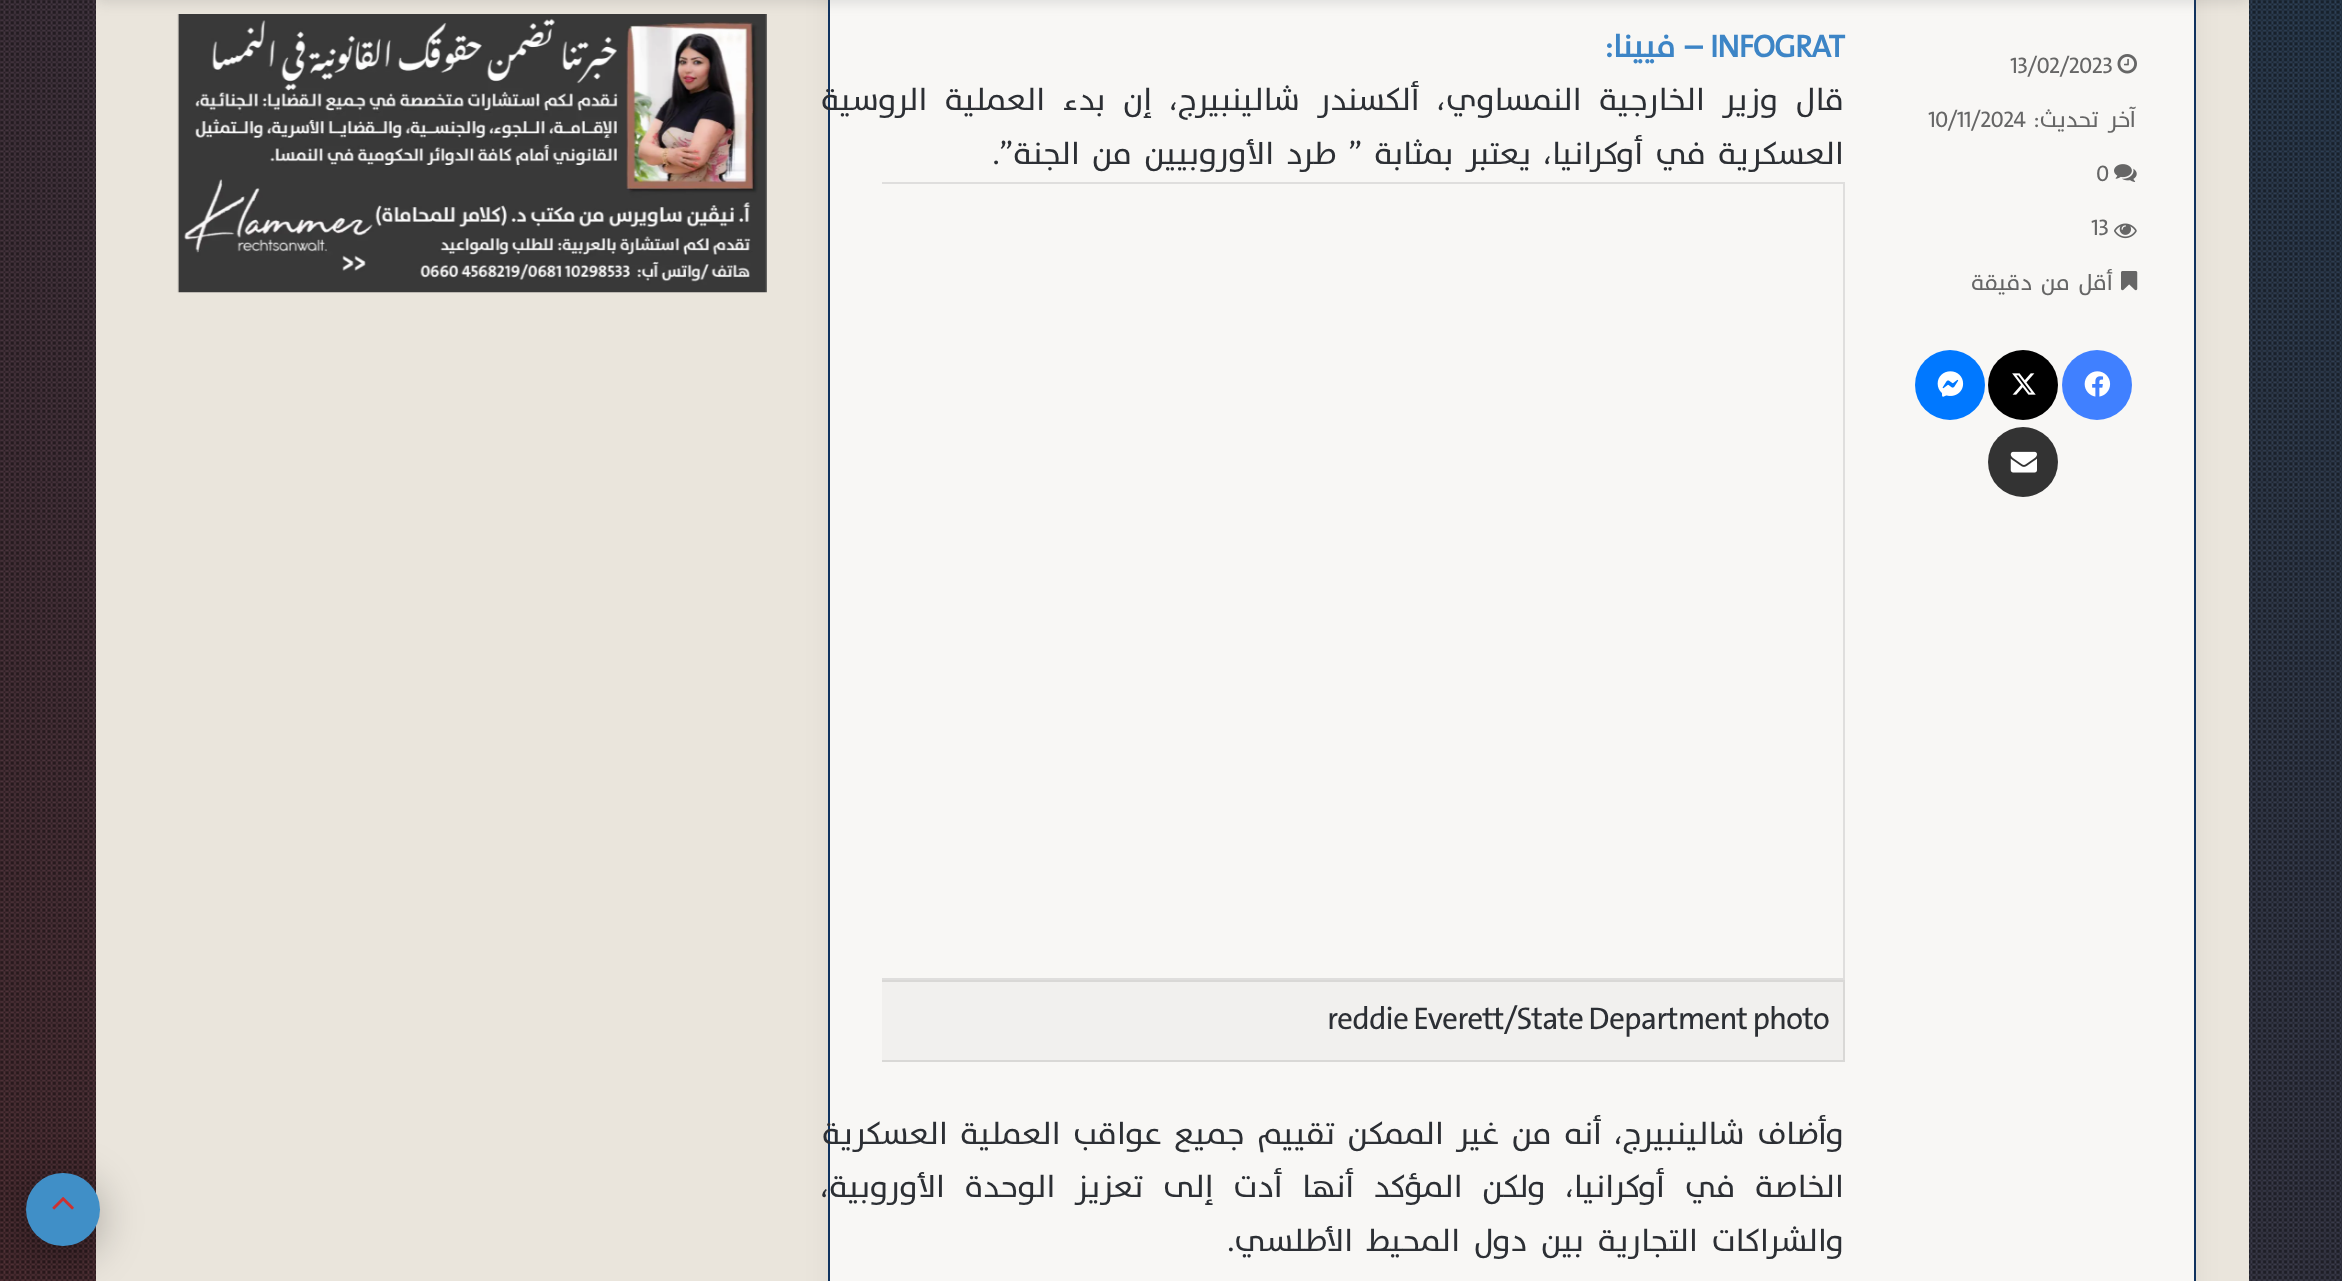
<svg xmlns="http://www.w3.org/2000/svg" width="2342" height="1281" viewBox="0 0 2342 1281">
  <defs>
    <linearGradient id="g1" gradientUnits="userSpaceOnUse" x1="-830" y1="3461" x2="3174" y2="-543"><stop offset="0" stop-color="rgb(116,38,30)"/><stop offset="1" stop-color="rgb(32,72,100)"/></linearGradient>
    <clipPath id="clip1"><rect x="882" y="182" width="963" height="928"/></clipPath>
  </defs>
  <rect width="100%" height="100%" fill="rgb(255,255,255)"/>
  <rect x="0" y="0" width="2342" height="1281" fill="url(#g1)"/>
  <image x="0" y="0" width="2342" height="1281" href="pic1.png"/>
  <rect x="96" y="0" width="2153" height="1281" fill="rgb(234,229,220)"/>
  <rect x="828" y="-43" width="1368" height="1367" rx="4" fill="rgba(0,0,0,0.05)" filter="blur(13px)"/>
  <rect x="829" y="-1" width="1366" height="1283" fill="rgb(248,247,245)" stroke="rgb(16,50,94)" stroke-width="2"/>
  <g clip-path="url(#clip1)">
    <rect x="451" y="183" width="1393" height="796" fill="none" stroke="rgb(223,222,221)" stroke-width="2"/>
  </g>
  <image x="177" y="14" width="590" height="279" href="pic10.png"/>
  <rect x="96" y="-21" width="2153" height="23" fill="rgba(99,99,99,0.2)" filter="blur(7px)"/>
  <image x="2117" y="54" width="20" height="20" href="pic2.png"/>
  <text x="2010" y="73" font-family="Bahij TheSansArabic" font-size="22.75" font-weight="500" letter-spacing="-0.88" fill="rgb(102,102,102)">13/02/2023</text>
  <text x="2136" y="127" word-spacing="5" font-family="Bahij TheSansArabic" font-size="22.75" font-weight="500" letter-spacing="-0.88" direction="rtl" fill="rgb(102,102,102)">آخر تحديث:</text>
  <text x="1928" y="127" font-family="Bahij TheSansArabic" font-size="22.75" font-weight="500" letter-spacing="-0.88" fill="rgb(102,102,102)">10/11/2024</text>
  <image x="2114" y="164" width="23" height="18" href="pic3.png"/>
  <text x="2096" y="181" font-family="Bahij TheSansArabic" font-size="22.75" font-weight="500" letter-spacing="-0.88" fill="rgb(102,102,102)">0</text>
  <image x="2114" y="223" width="23" height="16" href="pic4.png"/>
  <text x="2091" y="235" font-family="Bahij TheSansArabic" font-size="22.75" font-weight="500" letter-spacing="-0.88" fill="rgb(102,102,102)">13</text>
  <image x="2121" y="271" width="17" height="20" href="pic5.png"/>
  <text x="2113" y="290" word-spacing="4" font-family="Bahij TheSansArabic" font-size="22.75" font-weight="500" letter-spacing="-0.88" direction="rtl" fill="rgb(102,102,102)">أقل من دقيقة</text>
  <circle cx="2097" cy="385" r="35" fill="rgb(64,128,255)"/>
  <image x="2084" y="371" width="27" height="26" href="pic6.png"/>
  <circle cx="2023" cy="385" r="35" fill="rgb(0,0,0)"/>
  <image x="2012" y="373" width="24" height="22" href="pic7.png"/>
  <circle cx="1950" cy="385" r="35" fill="rgb(0,120,255)"/>
  <image x="1937" y="371" width="27" height="26" href="pic8.png"/>
  <circle cx="2023" cy="462" r="35" fill="rgb(51,51,51)"/>
  <image x="2010" y="451" width="27" height="22" href="pic9.png"/>
  <text x="1710" y="57" font-family="Bahij TheSansArabic" font-size="31.5" font-weight="bold" letter-spacing="-0.88" fill="rgb(61,133,198)">INFOGRAT</text>
  <text x="1702" y="57" word-spacing="3" font-family="Bahij TheSansArabic" font-size="31.5" font-weight="bold" letter-spacing="-0.88" direction="rtl" fill="rgb(61,133,198)">– فيينا:</text>
  <g font-family="Bahij TheSansArabic" font-size="31.5" font-weight="500" letter-spacing="-0.88" direction="rtl" fill="rgb(44,47,52)">
    <text>
      <tspan x="1844" y="110" word-spacing="11.25">قال وزير الخارجية النمساوي، ألكسندر شالينبيرج، إن بدء العملية الروسية</tspan>
      <tspan x="1844" y="164" word-spacing="6">العسكرية في أوكرانيا، يعتبر بمثابة ” طرد الأوروبيين من الجنة”.</tspan>
    </text>
  </g>
  <rect x="882" y="982" width="961" height="78" fill="rgb(241,240,238)"/>
  <g clip-path="url(#clip1)">
    <rect x="451" y="981" width="1393" height="80" fill="none" stroke="rgb(217,216,214)" stroke-width="2"/>
  </g>
  <text x="1327" y="1029" font-family="Bahij TheSansArabic" font-size="31.5" font-weight="500" letter-spacing="-0.88" fill="rgb(44,47,52)">reddie Everett/State Department photo</text>
  <g font-family="Bahij TheSansArabic" font-size="31.5" font-weight="500" letter-spacing="-0.88" direction="rtl" fill="rgb(44,47,52)">
    <text>
      <tspan x="1844" y="1144" word-spacing="6.25">وأضاف شالينبيرج، أنه من غير الممكن تقييم جميع عواقب العملية العسكرية</tspan>
      <tspan x="1844" y="1197" word-spacing="13.5">الخاصة في أوكرانيا، ولكن المؤكد أنها أدت إلى تعزيز الوحدة الأوروبية،</tspan>
      <tspan x="1844" y="1251" word-spacing="7.5">والشراكات التجارية بين دول المحيط الأطلسي.</tspan>
    </text>
  </g>
  <rect x="26" y="1181" width="74" height="74" rx="37" fill="rgba(0,0,0,0.3)" filter="blur(22px)"/>
  <rect x="26" y="1173" width="74" height="73" rx="36.5" fill="rgb(64,143,199)"/>
  <image x="52" y="1197" width="22" height="13" href="pic11.png"/>
</svg>
